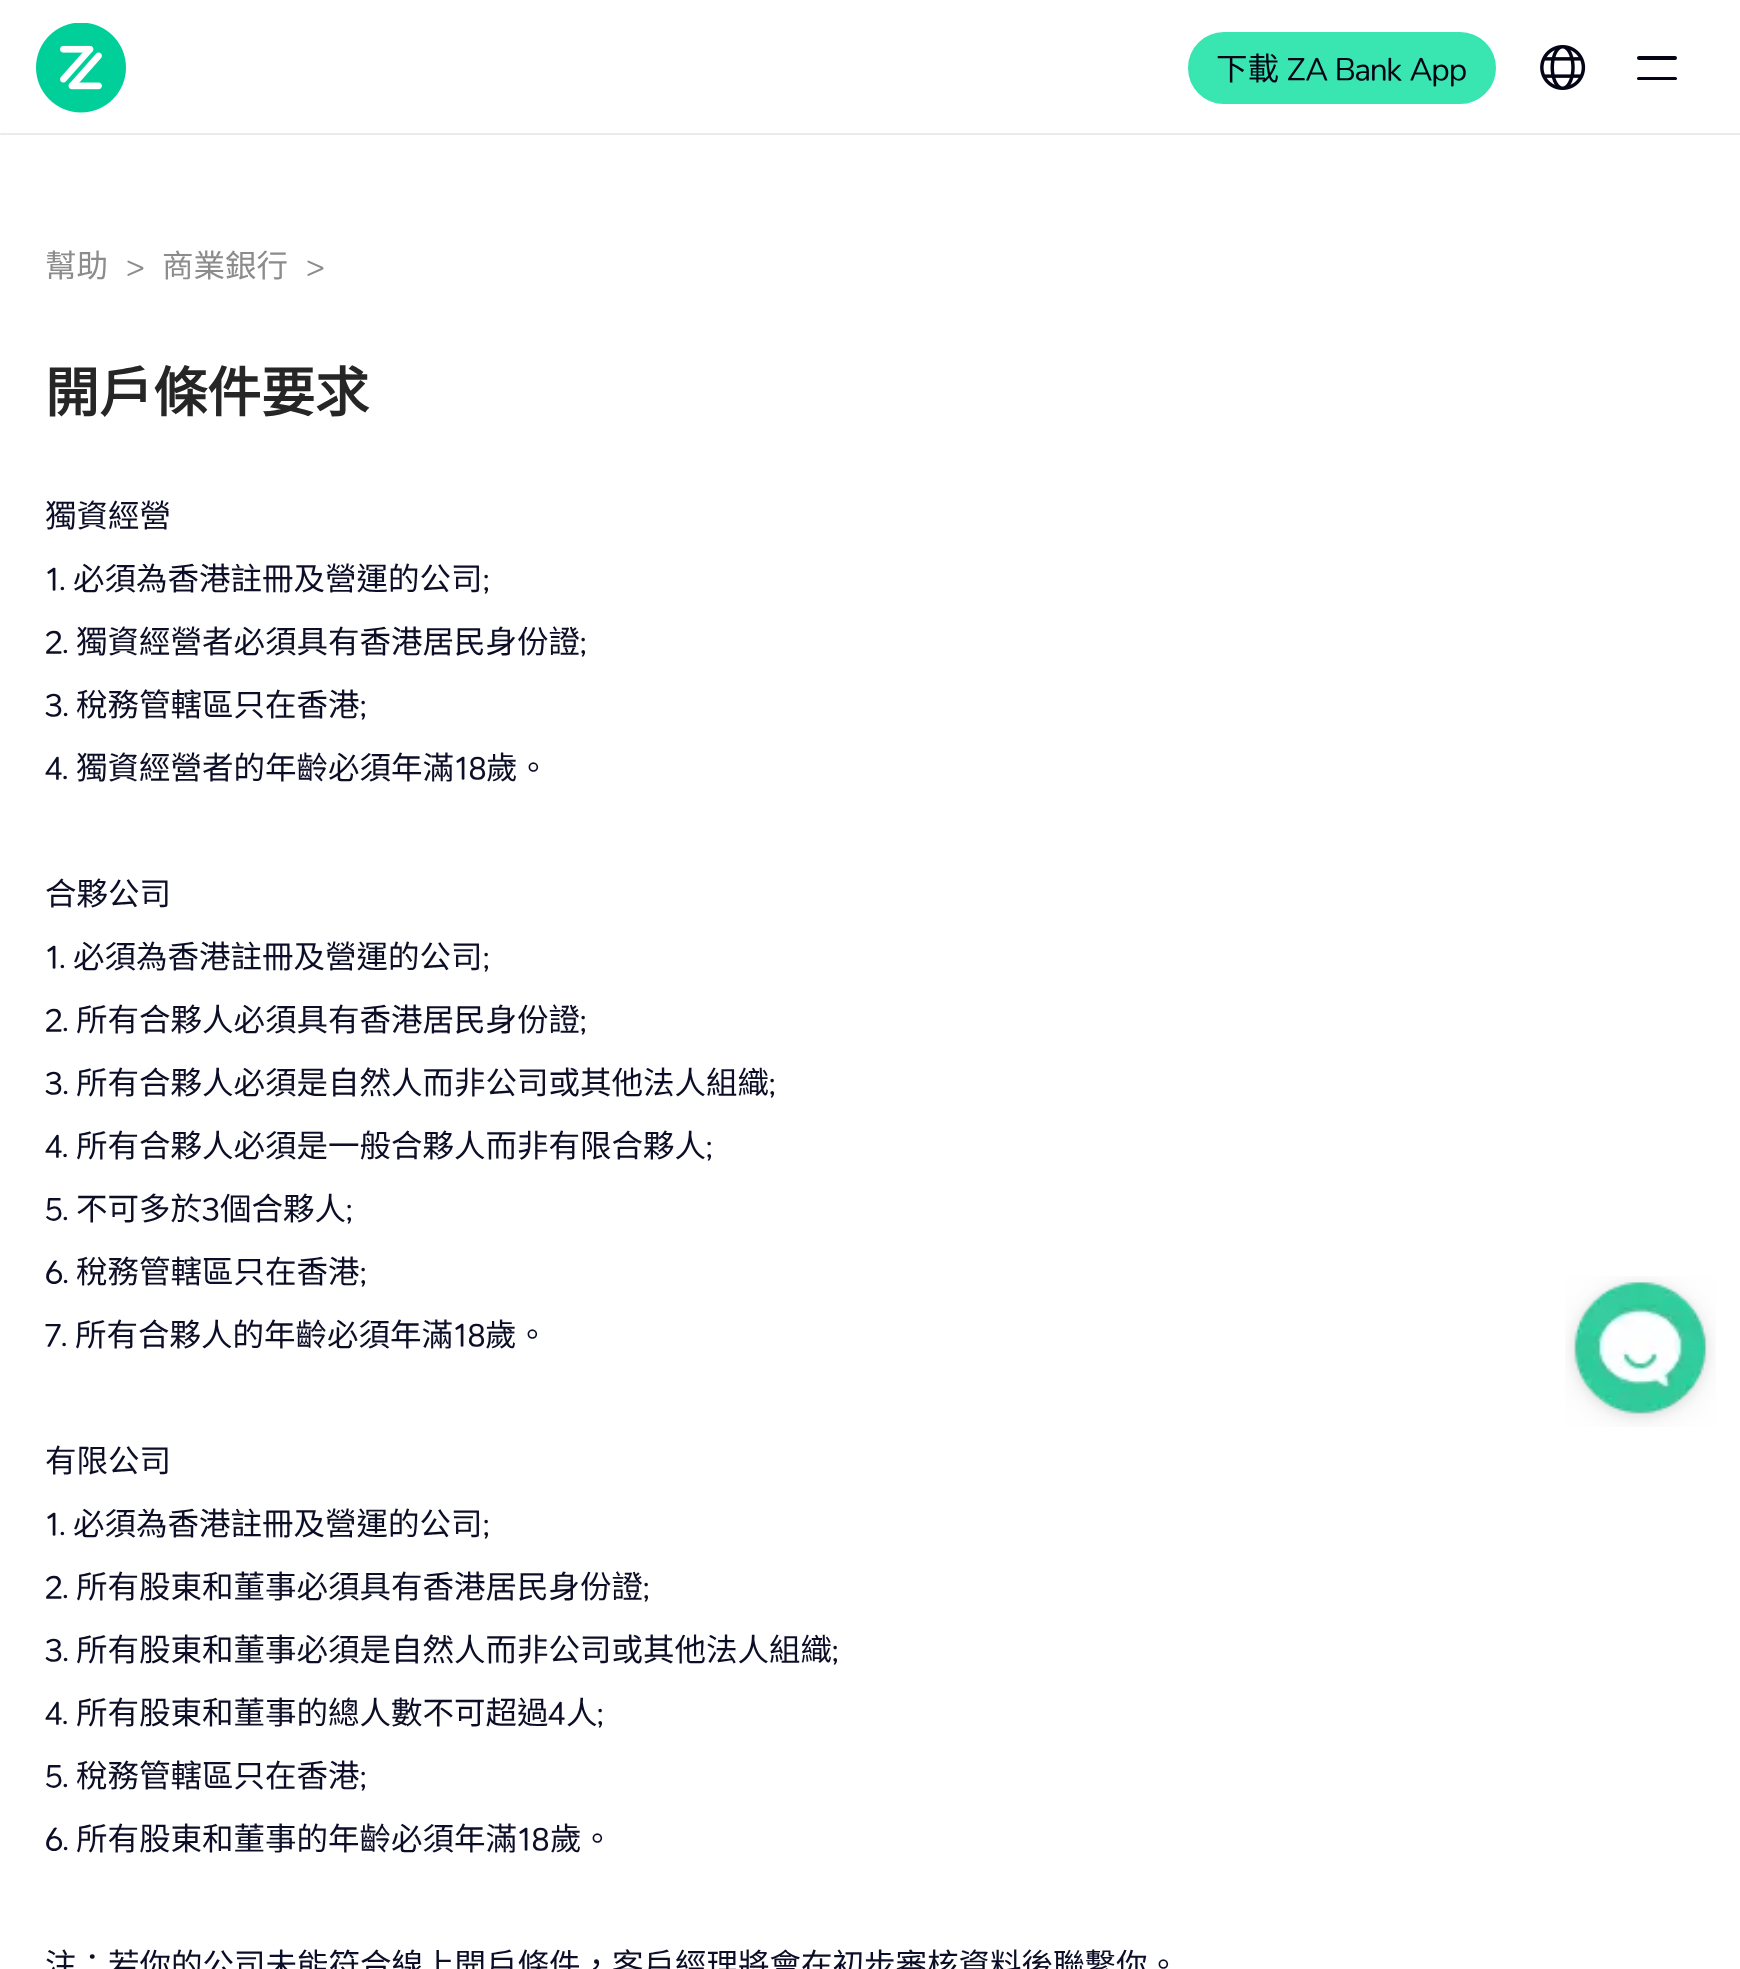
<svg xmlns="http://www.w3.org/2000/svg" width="1740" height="1969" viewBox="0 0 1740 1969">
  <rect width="100%" height="100%" fill="rgb(255,255,255)"/>
  <image x="36" y="23" width="90" height="90" href="pic1.png"/>
  <rect x="1189" y="33" width="306" height="70" rx="35" fill="rgb(57,229,177)" stroke="rgb(57,229,177)" stroke-width="2"/>
  <text x="1216" y="80" font-family="Noto Sans CJK HK" font-size="31.5" fill="rgb(3,5,22)">下載</text>
  <text x="1287" y="80" font-family="Nunito" font-size="31.5" fill="rgb(3,5,22)">ZA Bank App</text>
  <image x="1540" y="45" width="46" height="45" href="pic2.png"/>
  <rect x="1637" y="56" width="40" height="4" rx="2" fill="rgb(3,5,22)"/>
  <rect x="1637" y="77" width="40" height="3" rx="1.5" fill="rgb(3,5,22)"/>
  <rect x="0" y="133" width="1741" height="2" rx="1" fill="rgb(235,235,236)"/>
  <text x="45" y="277" font-family="Noto Sans CJK HK" font-size="31.5" fill="rgb(140,140,140)">幫助</text>
  <text x="126" y="277" font-family="Nunito" font-size="31.5" fill="rgb(140,140,140)">&gt;</text>
  <text x="162" y="277" font-family="Noto Sans CJK HK" font-size="31.5" fill="rgb(140,140,140)">商業銀行</text>
  <text x="306" y="277" font-family="Nunito" font-size="31.5" fill="rgb(140,140,140)">&gt;</text>
  <text x="45" y="412" font-family="Noto Sans CJK HK" font-size="54" font-weight="bold" fill="rgb(38,38,38)">開戶條件要求</text>
  <text x="45" y="527" font-family="Noto Sans CJK HK" font-size="31.5" fill="rgb(11,14,38)">獨資經營</text>
  <text x="45" y="590" font-family="Nunito" font-size="31.5" fill="rgb(11,14,38)">1.</text>
  <text x="73" y="590" font-family="Noto Sans CJK HK" font-size="31.5" fill="rgb(11,14,38)">必須為香港註冊及營運的公司</text>
  <g font-family="Nunito" font-size="31.5" fill="rgb(11,14,38)">
    <text x="483" y="590">;</text>
    <text x="45" y="653">2.</text>
  </g>
  <text x="76" y="653" font-family="Noto Sans CJK HK" font-size="31.5" fill="rgb(11,14,38)">獨資經營者必須具有香港居民身份證</text>
  <g font-family="Nunito" font-size="31.5" fill="rgb(11,14,38)">
    <text x="580" y="653">;</text>
    <text x="45" y="716">3.</text>
  </g>
  <text x="76" y="716" font-family="Noto Sans CJK HK" font-size="31.5" fill="rgb(11,14,38)">稅務管轄區只在香港</text>
  <g font-family="Nunito" font-size="31.5" fill="rgb(11,14,38)">
    <text x="360" y="716">;</text>
    <text x="45" y="779">4.</text>
  </g>
  <text x="76" y="779" font-family="Noto Sans CJK HK" font-size="31.5" fill="rgb(11,14,38)">獨資經營者的年齡必須年滿</text>
  <text x="454" y="779" font-family="Nunito" font-size="31.5" fill="rgb(11,14,38)">18</text>
  <g font-family="Noto Sans CJK HK" font-size="31.5" fill="rgb(11,14,38)">
    <text x="486" y="779">歲。</text>
    <text x="45" y="905">合夥公司</text>
  </g>
  <text x="45" y="968" font-family="Nunito" font-size="31.5" fill="rgb(11,14,38)">1.</text>
  <text x="73" y="968" font-family="Noto Sans CJK HK" font-size="31.5" fill="rgb(11,14,38)">必須為香港註冊及營運的公司</text>
  <g font-family="Nunito" font-size="31.5" fill="rgb(11,14,38)">
    <text x="483" y="968">;</text>
    <text x="45" y="1031">2.</text>
  </g>
  <text x="76" y="1031" font-family="Noto Sans CJK HK" font-size="31.5" fill="rgb(11,14,38)">所有合夥人必須具有香港居民身份證</text>
  <g font-family="Nunito" font-size="31.5" fill="rgb(11,14,38)">
    <text x="580" y="1031">;</text>
    <text x="45" y="1094">3.</text>
  </g>
  <text x="76" y="1094" font-family="Noto Sans CJK HK" font-size="31.5" fill="rgb(11,14,38)">所有合夥人必須是自然人而非公司或其他法人組織</text>
  <g font-family="Nunito" font-size="31.5" fill="rgb(11,14,38)">
    <text x="769" y="1094">;</text>
    <text x="45" y="1157">4.</text>
  </g>
  <text x="76" y="1157" font-family="Noto Sans CJK HK" font-size="31.5" fill="rgb(11,14,38)">所有合夥人必須是一般合夥人而非有限合夥人</text>
  <g font-family="Nunito" font-size="31.5" fill="rgb(11,14,38)">
    <text x="706" y="1157">;</text>
    <text x="45" y="1220">5.</text>
  </g>
  <text x="76" y="1220" font-family="Noto Sans CJK HK" font-size="31.5" fill="rgb(11,14,38)">不可多於</text>
  <text x="202" y="1220" font-family="Nunito" font-size="31.5" fill="rgb(11,14,38)">3</text>
  <text x="220" y="1220" font-family="Noto Sans CJK HK" font-size="31.5" fill="rgb(11,14,38)">個合夥人</text>
  <g font-family="Nunito" font-size="31.5" fill="rgb(11,14,38)">
    <text x="346" y="1220">;</text>
    <text x="45" y="1283">6.</text>
  </g>
  <text x="76" y="1283" font-family="Noto Sans CJK HK" font-size="31.5" fill="rgb(11,14,38)">稅務管轄區只在香港</text>
  <g font-family="Nunito" font-size="31.5" fill="rgb(11,14,38)">
    <text x="360" y="1283">;</text>
    <text x="45" y="1346">7.</text>
  </g>
  <text x="75" y="1346" font-family="Noto Sans CJK HK" font-size="31.5" fill="rgb(11,14,38)">所有合夥人的年齡必須年滿</text>
  <text x="453" y="1346" font-family="Nunito" font-size="31.5" fill="rgb(11,14,38)">18</text>
  <g font-family="Noto Sans CJK HK" font-size="31.5" fill="rgb(11,14,38)">
    <text x="485" y="1346">歲。</text>
    <text x="45" y="1472">有限公司</text>
  </g>
  <text x="45" y="1535" font-family="Nunito" font-size="31.5" fill="rgb(11,14,38)">1.</text>
  <text x="73" y="1535" font-family="Noto Sans CJK HK" font-size="31.5" fill="rgb(11,14,38)">必須為香港註冊及營運的公司</text>
  <g font-family="Nunito" font-size="31.5" fill="rgb(11,14,38)">
    <text x="483" y="1535">;</text>
    <text x="45" y="1598">2.</text>
  </g>
  <text x="76" y="1598" font-family="Noto Sans CJK HK" font-size="31.5" fill="rgb(11,14,38)">所有股東和董事必須具有香港居民身份證</text>
  <g font-family="Nunito" font-size="31.5" fill="rgb(11,14,38)">
    <text x="643" y="1598">;</text>
    <text x="45" y="1661">3.</text>
  </g>
  <text x="76" y="1661" font-family="Noto Sans CJK HK" font-size="31.5" fill="rgb(11,14,38)">所有股東和董事必須是自然人而非公司或其他法人組織</text>
  <g font-family="Nunito" font-size="31.5" fill="rgb(11,14,38)">
    <text x="832" y="1661">;</text>
    <text x="45" y="1724">4.</text>
  </g>
  <text x="76" y="1724" font-family="Noto Sans CJK HK" font-size="31.5" fill="rgb(11,14,38)">所有股東和董事的總人數不可超過</text>
  <text x="548" y="1724" font-family="Nunito" font-size="31.5" fill="rgb(11,14,38)">4</text>
  <text x="566" y="1724" font-family="Noto Sans CJK HK" font-size="31.5" fill="rgb(11,14,38)">人</text>
  <g font-family="Nunito" font-size="31.5" fill="rgb(11,14,38)">
    <text x="597" y="1724">;</text>
    <text x="45" y="1787">5.</text>
  </g>
  <text x="76" y="1787" font-family="Noto Sans CJK HK" font-size="31.5" fill="rgb(11,14,38)">稅務管轄區只在香港</text>
  <g font-family="Nunito" font-size="31.5" fill="rgb(11,14,38)">
    <text x="360" y="1787">;</text>
    <text x="45" y="1850">6.</text>
  </g>
  <text x="76" y="1850" font-family="Noto Sans CJK HK" font-size="31.5" fill="rgb(11,14,38)">所有股東和董事的年齡必須年滿</text>
  <text x="517" y="1850" font-family="Nunito" font-size="31.5" fill="rgb(11,14,38)">18</text>
  <g font-family="Noto Sans CJK HK" font-size="31.5" fill="rgb(11,14,38)">
    <text x="550" y="1850">歲。</text>
    <text x="45" y="1976">注：若你的公司未能符合線上開戶條件，客戶經理將會在初步審核資料後聯繫你。</text>
  </g>
  <image x="1565" y="1276" width="151" height="151" href="pic3.png"/>
</svg>
